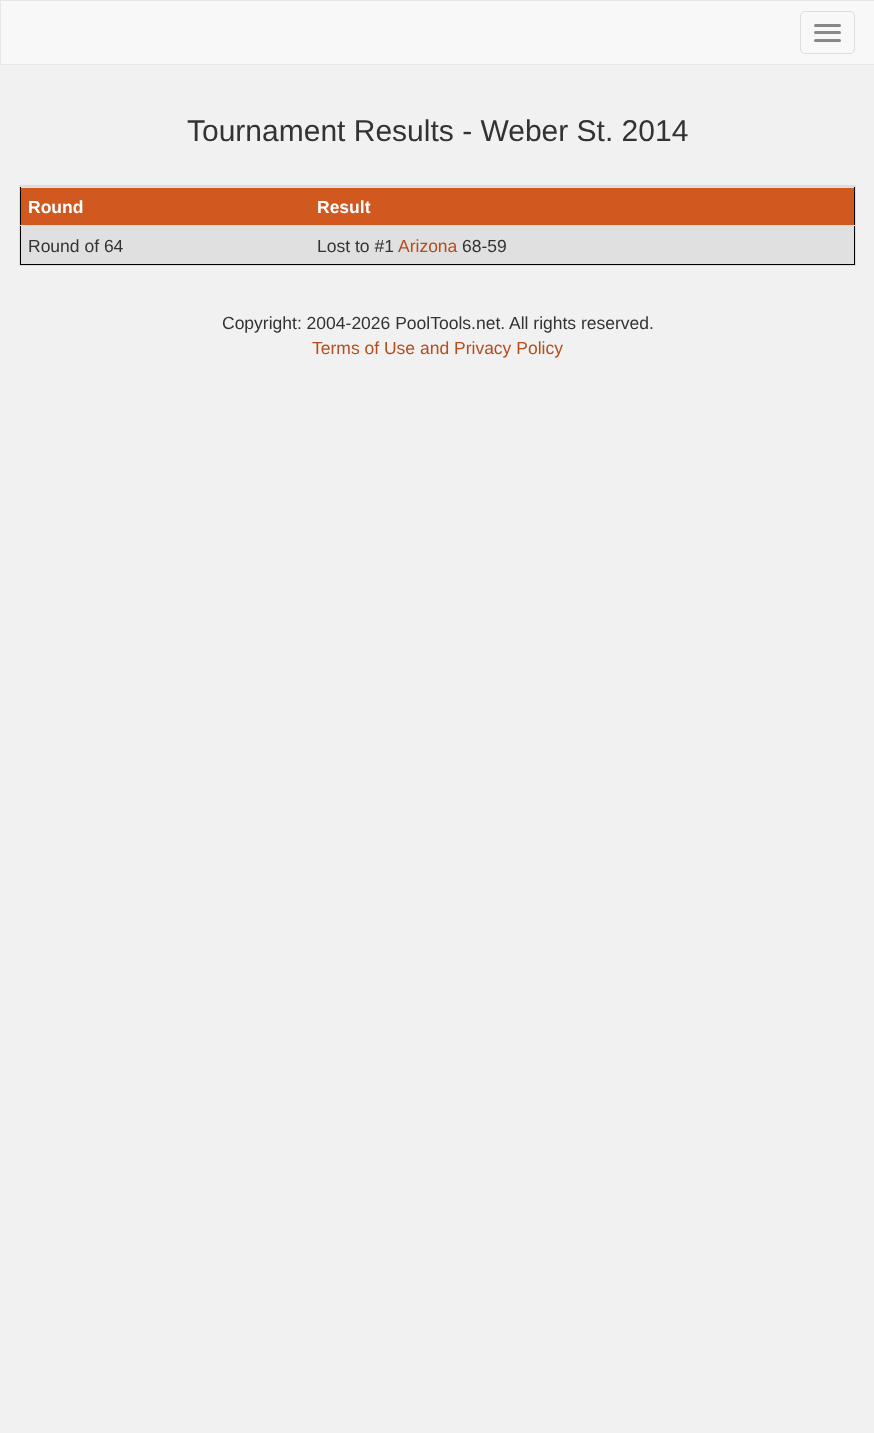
<svg xmlns="http://www.w3.org/2000/svg" width="874" height="1433" viewBox="0 0 874 1433">
  <rect width="100%" height="100%" fill="rgb(241,241,241)"/>
  <rect x="0.5" y="0.5" width="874" height="64" fill="rgb(248,248,248)" stroke="rgb(231,231,231)"/>
  <rect x="800.5" y="11.5" width="54" height="42" rx="4.5" fill="none" stroke="rgb(221,221,221)"/>
  <rect x="814" y="24" width="27" height="3" rx="1.5" fill="rgb(136,136,136)"/>
  <rect x="814" y="31" width="27" height="3" rx="1.5" fill="rgb(136,136,136)"/>
  <rect x="814" y="39" width="27" height="3" rx="1.5" fill="rgb(136,136,136)"/>
  <text x="187" y="141" font-family="Liberation Sans" font-size="30" fill="rgb(51,51,51)">Tournament Results - Weber St. 2014</text>
  <rect x="19.5" y="185.5" width="836" height="80" fill="none" stroke="rgb(221,221,221)"/>
  <rect x="21" y="187" width="833" height="77" fill="rgb(224,224,224)"/>
  <rect x="854" y="186" width="1" height="79" fill="rgb(0,0,0)"/>
  <rect x="20" y="264" width="835" height="1" fill="rgb(0,0,0)"/>
  <rect x="20" y="186" width="1" height="79" fill="rgb(0,0,0)"/>
  <rect x="21" y="188" width="833" height="37" fill="rgb(209,88,31)"/>
  <text x="28" y="213" font-family="Liberation Sans" font-size="17.5" font-weight="bold" fill="rgb(255,255,255)">Round</text>
  <rect x="20" y="186" width="835" height="1" fill="rgb(221,221,221)"/>
  <text x="317" y="213" font-family="Liberation Sans" font-size="17.5" font-weight="bold" fill="rgb(255,255,255)">Result</text>
  <text x="28" y="252" font-family="Liberation Sans" font-size="17.5" fill="rgb(51,51,51)">Round of 64</text>
  <rect x="20" y="225" width="835" height="1" fill="rgb(221,221,221)"/>
  <text x="317" y="252" font-family="Liberation Sans" font-size="17.5" fill="rgb(51,51,51)">Lost to #1</text>
  <text x="398" y="252" font-family="Liberation Sans" font-size="17.5" fill="rgb(180,76,27)">Arizona</text>
  <g font-family="Liberation Sans" font-size="17.5" fill="rgb(51,51,51)">
    <text x="462" y="252">68-59</text>
    <text x="222" y="329">Copyright: 2004-2026 PoolTools.net.</text>
    <text x="509" y="329">All rights reserved.</text>
  </g>
  <text x="312" y="354" font-family="Liberation Sans" font-size="17.5" fill="rgb(180,76,27)">Terms of Use and Privacy Policy</text>
</svg>
